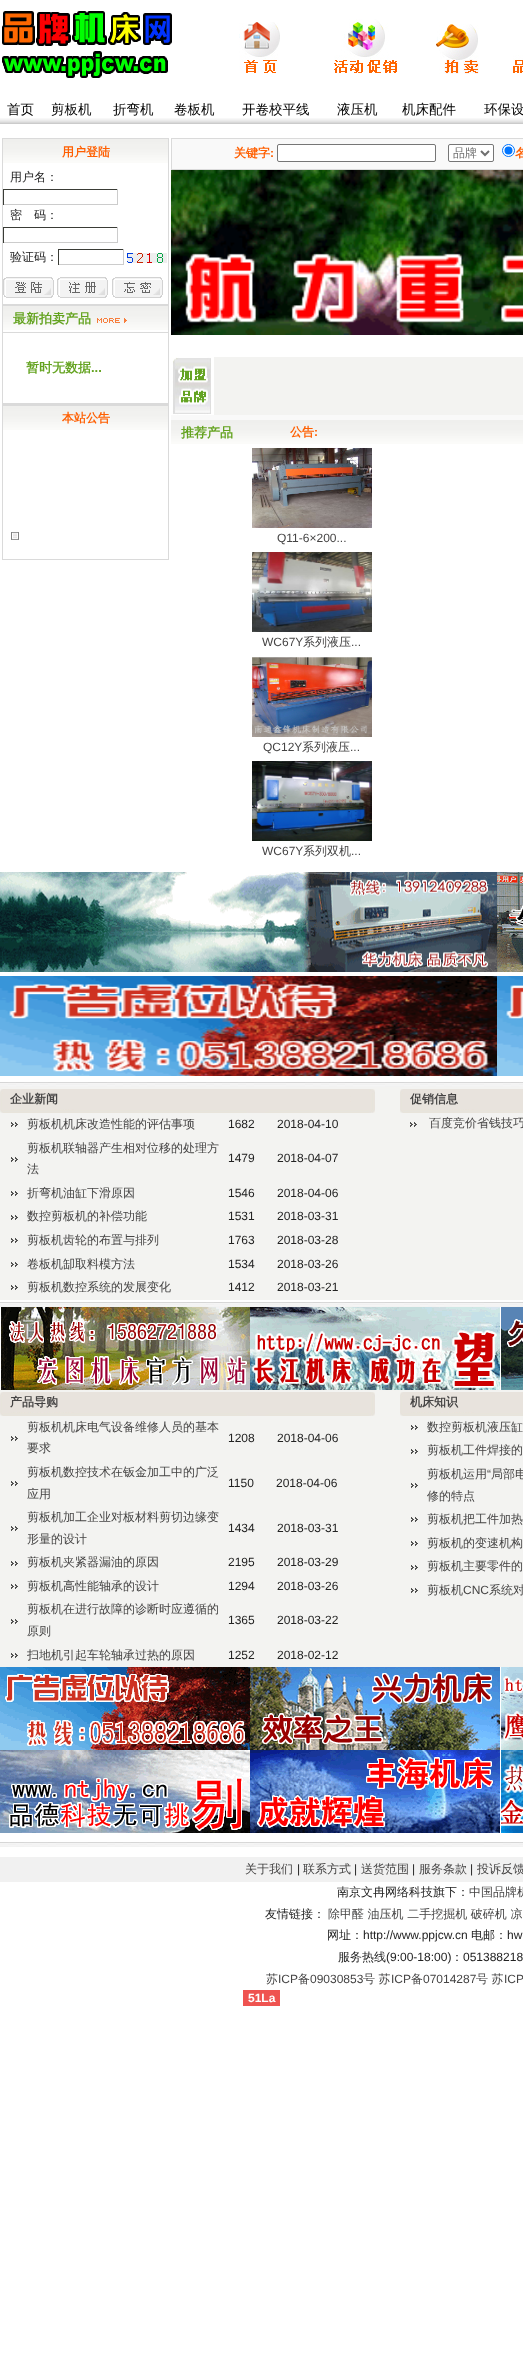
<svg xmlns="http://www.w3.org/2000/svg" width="523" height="2356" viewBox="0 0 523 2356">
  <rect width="100%" height="100%" fill="rgb(255,255,255)"/>
  <image x="2" y="11" width="170" height="67" href="pic1.png"/>
  <image x="239" y="22" width="41" height="51" href="pic2.png"/>
  <image x="334" y="19" width="63" height="54" href="pic3.png"/>
  <image x="436" y="24" width="43" height="50" href="pic4.png"/>
  <image x="513" y="55" width="10" height="18" href="pic5.png"/>
  <image x="0" y="118" width="523" height="6" href="pic6.png"/>
  <g font-family="WenQuanYi Zen Hei" font-size="13.5" font-weight="500" fill="rgb(0,0,0)">
    <text x="7" y="114">首页</text>
    <text x="51" y="114">剪板机</text>
    <text x="113" y="114">折弯机</text>
    <text x="174" y="114">卷板机</text>
    <text x="242" y="114">开卷校平线</text>
    <text x="337" y="114">液压机</text>
    <text x="402" y="114">机床配件</text>
    <text x="484" y="114">环保设</text>
  </g>
  <rect x="2.5" y="138.5" width="166" height="166" fill="none" stroke="rgb(218,218,218)"/>
  <image x="3" y="139" width="165" height="24" href="pic7.png"/>
  <text x="62" y="156" font-family="WenQuanYi Zen Hei" font-size="12" font-weight="bold" fill="rgb(255,95,1)">用户登陆</text>
  <text x="10" y="181" font-family="WenQuanYi Zen Hei" font-size="12" font-weight="500" fill="rgb(34,34,34)">用户名：</text>
  <rect x="3" y="189" width="115" height="1" fill="rgb(58,60,54)"/>
  <rect x="117" y="189" width="1" height="16" fill="rgb(204,204,204)"/>
  <rect x="3" y="204" width="115" height="1" fill="rgb(204,204,204)"/>
  <rect x="3" y="189" width="1" height="16" fill="rgb(58,60,54)"/>
  <text x="10" y="219" font-family="WenQuanYi Zen Hei" font-size="12" font-weight="500" fill="rgb(34,34,34)">密　码：</text>
  <rect x="3" y="227" width="115" height="1" fill="rgb(58,60,54)"/>
  <rect x="117" y="227" width="1" height="16" fill="rgb(204,204,204)"/>
  <rect x="3" y="242" width="115" height="1" fill="rgb(204,204,204)"/>
  <rect x="3" y="227" width="1" height="16" fill="rgb(58,60,54)"/>
  <text x="10" y="261" font-family="WenQuanYi Zen Hei" font-size="12" font-weight="500" fill="rgb(34,34,34)">验证码：</text>
  <rect x="58" y="249" width="66" height="1" fill="rgb(58,60,54)"/>
  <rect x="123" y="249" width="1" height="16" fill="rgb(204,204,204)"/>
  <rect x="58" y="264" width="66" height="1" fill="rgb(204,204,204)"/>
  <rect x="58" y="249" width="1" height="16" fill="rgb(58,60,54)"/>
  <image x="127" y="253" width="40" height="10" href="pic8.png"/>
  <image x="3" y="277" width="51" height="21" href="pic9.png"/>
  <image x="57" y="277" width="51" height="21" href="pic10.png"/>
  <image x="112" y="277" width="51" height="21" href="pic11.png"/>
  <rect x="2.5" y="305.5" width="166" height="99" fill="none" stroke="rgb(218,218,218)"/>
  <image x="3" y="306" width="165" height="24" href="pic7.png"/>
  <rect x="3" y="332" width="165" height="1" fill="rgb(218,218,218)"/>
  <text x="13" y="323" font-family="WenQuanYi Zen Hei" font-size="13" font-weight="bold" fill="rgb(100,163,32)">最新拍卖产品</text>
  <image x="97" y="318" width="30" height="5" href="pic12.png"/>
  <rect x="3" y="403" width="165" height="1" fill="rgb(218,218,218)"/>
  <text x="26" y="372" font-family="WenQuanYi Zen Hei" font-size="13" font-weight="bold" fill="rgb(100,163,32)">暂时无数据</text>
  <text x="91" y="372" font-family="Liberation Sans" font-size="13" font-weight="bold" fill="rgb(100,163,32)">...</text>
  <rect x="2.5" y="405.5" width="166" height="154" fill="none" stroke="rgb(218,218,218)"/>
  <image x="3" y="406" width="165" height="24" href="pic7.png"/>
  <text x="62" y="422" font-family="WenQuanYi Zen Hei" font-size="12" font-weight="bold" fill="rgb(255,95,1)">本站公告</text>
  <image x="11" y="532" width="8" height="8" href="pic13.png"/>
  <rect x="171.5" y="138.5" width="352" height="31" fill="none" stroke="rgb(218,218,218)"/>
  <rect x="172" y="139" width="351" height="30" fill="rgb(249,249,249)"/>
  <text x="234" y="157" font-family="WenQuanYi Zen Hei" font-size="12" font-weight="bold" fill="rgb(255,95,1)">关键字</text>
  <text x="270" y="157" font-family="Liberation Sans" font-size="12" font-weight="bold" fill="rgb(255,95,1)">:</text>
  <rect x="277.5" y="144.5" width="158" height="17" rx="1.5" fill="rgb(255,255,255)" stroke="rgb(118,118,118)"/>
  <rect x="448.5" y="144.5" width="45" height="17" rx="1.5" fill="rgb(255,255,255)" stroke="rgb(118,118,118)"/>
  <path d="M481 151L485 155L489 151" fill="none" stroke="rgb(111,111,111)" stroke-width="2"/>
  <text x="453" y="157" font-family="WenQuanYi Zen Hei" font-size="12" font-weight="500" fill="rgb(111,111,111)">品牌</text>
  <circle cx="508.5" cy="150.5" r="6" fill="rgb(255,255,255)" stroke="rgb(0,117,255)"/>
  <circle cx="508.5" cy="150.5" r="4" fill="rgb(0,117,255)"/>
  <text x="515" y="157" font-family="WenQuanYi Zen Hei" font-size="12" font-weight="bold" fill="rgb(255,95,1)">名</text>
  <image x="171" y="170" width="352" height="165" href="pic14.png"/>
  <rect x="214" y="357" width="309" height="58" fill="rgb(243,243,241)"/>
  <image x="171" y="357" width="43" height="58" href="pic15.png"/>
  <rect x="171" y="415" width="352" height="5" fill="rgb(249,249,249)"/>
  <image x="171" y="420" width="119" height="24" href="pic16.png"/>
  <text x="181" y="437" font-family="WenQuanYi Zen Hei" font-size="13" font-weight="bold" fill="rgb(100,163,32)">推荐产品</text>
  <image x="290" y="420" width="47" height="24" href="pic17.png"/>
  <text x="290" y="436" font-family="WenQuanYi Zen Hei" font-size="12" font-weight="bold" fill="rgb(255,95,1)">公告</text>
  <text x="314" y="436" font-family="Liberation Sans" font-size="12" font-weight="bold" fill="rgb(255,95,1)">:</text>
  <image x="337" y="420" width="186" height="24" href="pic18.png"/>
  <image x="252" y="448" width="120" height="80" href="pic19.png"/>
  <text x="277" y="542" font-family="Liberation Sans" font-size="12" fill="rgb(69,68,68)">Q11-6×200...</text>
  <image x="252" y="552" width="120" height="80" href="pic20.png"/>
  <text x="262" y="646" font-family="Liberation Sans" font-size="12" fill="rgb(69,68,68)">WC67Y</text>
  <text x="303" y="646" font-family="WenQuanYi Zen Hei" font-size="12" font-weight="500" fill="rgb(69,68,68)">系列液压</text>
  <text x="351" y="646" font-family="Liberation Sans" font-size="12" fill="rgb(69,68,68)">...</text>
  <image x="252" y="657" width="120" height="80" href="pic21.png"/>
  <text x="263" y="751" font-family="Liberation Sans" font-size="12" fill="rgb(69,68,68)">QC12Y</text>
  <text x="302" y="751" font-family="WenQuanYi Zen Hei" font-size="12" font-weight="500" fill="rgb(69,68,68)">系列液压</text>
  <text x="350" y="751" font-family="Liberation Sans" font-size="12" fill="rgb(69,68,68)">...</text>
  <image x="252" y="761" width="120" height="80" href="pic22.png"/>
  <text x="262" y="855" font-family="Liberation Sans" font-size="12" fill="rgb(69,68,68)">WC67Y</text>
  <text x="303" y="855" font-family="WenQuanYi Zen Hei" font-size="12" font-weight="500" fill="rgb(69,68,68)">系列双机</text>
  <text x="351" y="855" font-family="Liberation Sans" font-size="12" fill="rgb(69,68,68)">...</text>
  <image x="0" y="872" width="497" height="100" href="pic23.png"/>
  <image x="497" y="872" width="26" height="100" href="pic24.png"/>
  <image x="0" y="976" width="497" height="100" href="pic25.png"/>
  <image x="497" y="976" width="26" height="100" href="pic26.png"/>
  <image x="0" y="1082" width="523" height="5" href="pic27.png"/>
  <rect x="0" y="1087" width="523" height="213" fill="rgb(243,243,241)"/>
  <image x="0" y="1089" width="375" height="24" href="pic28.png"/>
  <text x="10" y="1103" font-family="WenQuanYi Zen Hei" font-size="12" font-weight="bold" fill="rgb(69,68,68)">企业新闻</text>
  <image x="400" y="1089" width="123" height="24" href="pic29.png"/>
  <text x="410" y="1103" font-family="WenQuanYi Zen Hei" font-size="12" font-weight="bold" fill="rgb(69,68,68)">促销信息</text>
  <image x="11" y="1122" width="7" height="5" href="pic30.png"/>
  <text x="27" y="1128" font-family="WenQuanYi Zen Hei" font-size="12" font-weight="500" fill="rgb(69,68,68)">剪板机机床改造性能的评估事项</text>
  <g font-family="Liberation Sans" font-size="12" fill="rgb(34,34,34)">
    <text x="228" y="1128">1682</text>
    <text x="277" y="1128">2018-04-10</text>
  </g>
  <image x="11" y="1157" width="7" height="5" href="pic30.png"/>
  <g font-family="WenQuanYi Zen Hei" font-size="12" font-weight="500" fill="rgb(69,68,68)">
    <text>
      <tspan x="27" y="1152">剪板机联轴器产生相对位移的处理方</tspan>
      <tspan x="27" y="1173">法</tspan>
    </text>
  </g>
  <g font-family="Liberation Sans" font-size="12" fill="rgb(34,34,34)">
    <text x="228" y="1162">1479</text>
    <text x="277" y="1162">2018-04-07</text>
  </g>
  <image x="11" y="1191" width="7" height="5" href="pic30.png"/>
  <text x="27" y="1197" font-family="WenQuanYi Zen Hei" font-size="12" font-weight="500" fill="rgb(69,68,68)">折弯机油缸下滑原因</text>
  <g font-family="Liberation Sans" font-size="12" fill="rgb(34,34,34)">
    <text x="228" y="1197">1546</text>
    <text x="277" y="1197">2018-04-06</text>
  </g>
  <image x="11" y="1215" width="7" height="5" href="pic30.png"/>
  <text x="27" y="1220" font-family="WenQuanYi Zen Hei" font-size="12" font-weight="500" fill="rgb(69,68,68)">数控剪板机的补偿功能</text>
  <g font-family="Liberation Sans" font-size="12" fill="rgb(34,34,34)">
    <text x="228" y="1220">1531</text>
    <text x="277" y="1220">2018-03-31</text>
  </g>
  <image x="11" y="1238" width="7" height="5" href="pic30.png"/>
  <text x="27" y="1244" font-family="WenQuanYi Zen Hei" font-size="12" font-weight="500" fill="rgb(69,68,68)">剪板机齿轮的布置与排列</text>
  <g font-family="Liberation Sans" font-size="12" fill="rgb(34,34,34)">
    <text x="228" y="1244">1763</text>
    <text x="277" y="1244">2018-03-28</text>
  </g>
  <image x="11" y="1262" width="7" height="5" href="pic30.png"/>
  <text x="27" y="1268" font-family="WenQuanYi Zen Hei" font-size="12" font-weight="500" fill="rgb(69,68,68)">卷板机缷取料模方法</text>
  <g font-family="Liberation Sans" font-size="12" fill="rgb(34,34,34)">
    <text x="228" y="1268">1534</text>
    <text x="277" y="1268">2018-03-26</text>
  </g>
  <image x="11" y="1285" width="7" height="5" href="pic30.png"/>
  <text x="27" y="1291" font-family="WenQuanYi Zen Hei" font-size="12" font-weight="500" fill="rgb(69,68,68)">剪板机数控系统的发展变化</text>
  <g font-family="Liberation Sans" font-size="12" fill="rgb(34,34,34)">
    <text x="228" y="1291">1412</text>
    <text x="277" y="1291">2018-03-21</text>
  </g>
  <image x="410" y="1122" width="7" height="5" href="pic30.png"/>
  <text x="429" y="1127" font-family="WenQuanYi Zen Hei" font-size="12" font-weight="500" fill="rgb(69,68,68)">百度竞价省钱技巧</text>
  <image x="0" y="1302" width="501" height="5" href="pic31.png"/>
  <image x="501" y="1302" width="22" height="5" href="pic32.png"/>
  <image x="1" y="1307" width="249" height="83" href="pic33.png"/>
  <image x="250" y="1307" width="250" height="83" href="pic34.png"/>
  <image x="501" y="1307" width="22" height="83" href="pic35.png"/>
  <rect x="0" y="1390" width="523" height="277" fill="rgb(243,243,241)"/>
  <image x="0" y="1392" width="375" height="24" href="pic28.png"/>
  <text x="10" y="1406" font-family="WenQuanYi Zen Hei" font-size="12" font-weight="bold" fill="rgb(69,68,68)">产品导购</text>
  <image x="400" y="1392" width="123" height="24" href="pic29.png"/>
  <text x="410" y="1406" font-family="WenQuanYi Zen Hei" font-size="12" font-weight="bold" fill="rgb(69,68,68)">机床知识</text>
  <image x="11" y="1436" width="7" height="5" href="pic30.png"/>
  <g font-family="WenQuanYi Zen Hei" font-size="12" font-weight="500" fill="rgb(69,68,68)">
    <text>
      <tspan x="27" y="1431">剪板机机床电气设备维修人员的基本</tspan>
      <tspan x="27" y="1452">要求</tspan>
    </text>
  </g>
  <g font-family="Liberation Sans" font-size="12" fill="rgb(34,34,34)">
    <text x="228" y="1442">1208</text>
    <text x="277" y="1442">2018-04-06</text>
  </g>
  <image x="11" y="1481" width="7" height="5" href="pic30.png"/>
  <g font-family="WenQuanYi Zen Hei" font-size="12" font-weight="500" fill="rgb(69,68,68)">
    <text>
      <tspan x="27" y="1476">剪板机数控技术在钣金加工中的广泛</tspan>
      <tspan x="27" y="1498">应用</tspan>
    </text>
  </g>
  <g font-family="Liberation Sans" font-size="12" fill="rgb(34,34,34)">
    <text x="228" y="1487">1150</text>
    <text x="276" y="1487">2018-04-06</text>
  </g>
  <image x="11" y="1526" width="7" height="5" href="pic30.png"/>
  <g font-family="WenQuanYi Zen Hei" font-size="12" font-weight="500" fill="rgb(69,68,68)">
    <text>
      <tspan x="27" y="1521">剪板机加工企业对板材料剪切边缘变</tspan>
      <tspan x="27" y="1543">形量的设计</tspan>
    </text>
  </g>
  <g font-family="Liberation Sans" font-size="12" fill="rgb(34,34,34)">
    <text x="228" y="1532">1434</text>
    <text x="277" y="1532">2018-03-31</text>
  </g>
  <image x="11" y="1561" width="7" height="5" href="pic30.png"/>
  <text x="27" y="1566" font-family="WenQuanYi Zen Hei" font-size="12" font-weight="500" fill="rgb(69,68,68)">剪板机夹紧器漏油的原因</text>
  <g font-family="Liberation Sans" font-size="12" fill="rgb(34,34,34)">
    <text x="228" y="1566">2195</text>
    <text x="277" y="1566">2018-03-29</text>
  </g>
  <image x="11" y="1584" width="7" height="5" href="pic30.png"/>
  <text x="27" y="1590" font-family="WenQuanYi Zen Hei" font-size="12" font-weight="500" fill="rgb(69,68,68)">剪板机高性能轴承的设计</text>
  <g font-family="Liberation Sans" font-size="12" fill="rgb(34,34,34)">
    <text x="228" y="1590">1294</text>
    <text x="277" y="1590">2018-03-26</text>
  </g>
  <image x="11" y="1619" width="7" height="5" href="pic30.png"/>
  <g font-family="WenQuanYi Zen Hei" font-size="12" font-weight="500" fill="rgb(69,68,68)">
    <text>
      <tspan x="27" y="1613">剪板机在进行故障的诊断时应遵循的</tspan>
      <tspan x="27" y="1635">原则</tspan>
    </text>
  </g>
  <g font-family="Liberation Sans" font-size="12" fill="rgb(34,34,34)">
    <text x="228" y="1624">1365</text>
    <text x="277" y="1624">2018-03-22</text>
  </g>
  <image x="11" y="1653" width="7" height="5" href="pic30.png"/>
  <text x="27" y="1659" font-family="WenQuanYi Zen Hei" font-size="12" font-weight="500" fill="rgb(69,68,68)">扫地机引起车轮轴承过热的原因</text>
  <g font-family="Liberation Sans" font-size="12" fill="rgb(34,34,34)">
    <text x="228" y="1659">1252</text>
    <text x="277" y="1659">2018-02-12</text>
  </g>
  <image x="411" y="1425" width="7" height="5" href="pic30.png"/>
  <text x="427" y="1431" font-family="WenQuanYi Zen Hei" font-size="12" font-weight="500" fill="rgb(69,68,68)">数控剪板机液压缸</text>
  <image x="411" y="1449" width="7" height="5" href="pic30.png"/>
  <text x="427" y="1454" font-family="WenQuanYi Zen Hei" font-size="12" font-weight="500" fill="rgb(69,68,68)">剪板机工件焊接的</text>
  <image x="411" y="1483" width="7" height="5" href="pic30.png"/>
  <text x="427" y="1478" font-family="WenQuanYi Zen Hei" font-size="12" font-weight="500" fill="rgb(69,68,68)">剪板机运用</text>
  <text x="487" y="1478" font-family="Liberation Sans" font-size="12" fill="rgb(69,68,68)">“</text>
  <g font-family="WenQuanYi Zen Hei" font-size="12" font-weight="500" fill="rgb(69,68,68)">
    <text x="491" y="1478">局部电</text>
    <text x="427" y="1500">修的特点</text>
  </g>
  <image x="411" y="1517" width="7" height="5" href="pic30.png"/>
  <text x="427" y="1523" font-family="WenQuanYi Zen Hei" font-size="12" font-weight="500" fill="rgb(69,68,68)">剪板机把工件加热</text>
  <image x="411" y="1541" width="7" height="5" href="pic30.png"/>
  <text x="427" y="1547" font-family="WenQuanYi Zen Hei" font-size="12" font-weight="500" fill="rgb(69,68,68)">剪板机的变速机构</text>
  <image x="411" y="1565" width="7" height="5" href="pic30.png"/>
  <text x="427" y="1570" font-family="WenQuanYi Zen Hei" font-size="12" font-weight="500" fill="rgb(69,68,68)">剪板机主要零件的</text>
  <image x="411" y="1588" width="7" height="5" href="pic30.png"/>
  <text x="427" y="1594" font-family="WenQuanYi Zen Hei" font-size="12" font-weight="500" fill="rgb(69,68,68)">剪板机</text>
  <text x="463" y="1594" font-family="Liberation Sans" font-size="12" fill="rgb(69,68,68)">CNC</text>
  <text x="489" y="1594" font-family="WenQuanYi Zen Hei" font-size="12" font-weight="500" fill="rgb(69,68,68)">系统对</text>
  <image x="0" y="1667" width="250" height="83" href="pic36.png"/>
  <image x="250" y="1667" width="250" height="83" href="pic37.png"/>
  <image x="501" y="1667" width="22" height="83" href="pic38.png"/>
  <image x="0" y="1750" width="250" height="83" href="pic39.png"/>
  <image x="250" y="1750" width="250" height="83" href="pic40.png"/>
  <image x="501" y="1750" width="22" height="83" href="pic41.png"/>
  <image x="0" y="1842" width="523" height="5" href="pic27.png"/>
  <rect x="0" y="1857" width="523" height="25" fill="rgb(241,241,241)"/>
  <text x="245" y="1873" font-family="WenQuanYi Zen Hei" font-size="12" font-weight="500" fill="rgb(69,68,68)">关于我们</text>
  <text x="297" y="1873" font-family="Liberation Sans" font-size="12" fill="rgb(34,34,34)">|</text>
  <text x="303" y="1873" font-family="WenQuanYi Zen Hei" font-size="12" font-weight="500" fill="rgb(69,68,68)">联系方式</text>
  <text x="354" y="1873" font-family="Liberation Sans" font-size="12" fill="rgb(34,34,34)">|</text>
  <text x="361" y="1873" font-family="WenQuanYi Zen Hei" font-size="12" font-weight="500" fill="rgb(69,68,68)">送货范围</text>
  <text x="412" y="1873" font-family="Liberation Sans" font-size="12" fill="rgb(34,34,34)">|</text>
  <text x="419" y="1873" font-family="WenQuanYi Zen Hei" font-size="12" font-weight="500" fill="rgb(69,68,68)">服务条款</text>
  <text x="470" y="1873" font-family="Liberation Sans" font-size="12" fill="rgb(34,34,34)">|</text>
  <text x="477" y="1873" font-family="WenQuanYi Zen Hei" font-size="12" font-weight="500" fill="rgb(69,68,68)">投诉反馈</text>
  <text x="337" y="1896" font-family="WenQuanYi Zen Hei" font-size="12" font-weight="500" fill="rgb(34,34,34)">南京文冉网络科技旗下：</text>
  <text x="469" y="1896" font-family="WenQuanYi Zen Hei" font-size="12" font-weight="500" fill="rgb(69,68,68)">中国品牌机</text>
  <text x="265" y="1918" font-family="WenQuanYi Zen Hei" font-size="12" font-weight="500" fill="rgb(34,34,34)">友情链接：</text>
  <text x="328" y="1918" font-family="WenQuanYi Zen Hei" font-size="12" font-weight="500" fill="rgb(69,68,68)">除甲醛 油压机 二手挖掘机 破碎机 凉</text>
  <text x="327" y="1939" font-family="WenQuanYi Zen Hei" font-size="12" font-weight="500" fill="rgb(34,34,34)">网址：</text>
  <text x="363" y="1939" font-family="Liberation Sans" font-size="12" fill="rgb(34,34,34)">http://www.ppjcw.cn</text>
  <text x="471" y="1939" font-family="WenQuanYi Zen Hei" font-size="12" font-weight="500" fill="rgb(34,34,34)">电邮：</text>
  <text x="507" y="1939" font-family="Liberation Sans" font-size="12" fill="rgb(34,34,34)">hw</text>
  <text x="338" y="1961" font-family="WenQuanYi Zen Hei" font-size="12" font-weight="500" fill="rgb(34,34,34)">服务热线</text>
  <text x="386" y="1961" font-family="Liberation Sans" font-size="12" fill="rgb(34,34,34)">(9:00-18:00)</text>
  <text x="451" y="1961" font-family="WenQuanYi Zen Hei" font-size="12" font-weight="500" fill="rgb(34,34,34)">：</text>
  <text x="463" y="1961" font-family="Liberation Sans" font-size="12" fill="rgb(34,34,34)">051388218</text>
  <text x="266" y="1983" font-family="WenQuanYi Zen Hei" font-size="12" font-weight="500" fill="rgb(69,68,68)">苏</text>
  <text x="278" y="1983" font-family="Liberation Sans" font-size="12" fill="rgb(69,68,68)">ICP</text>
  <text x="298" y="1983" font-family="WenQuanYi Zen Hei" font-size="12" font-weight="500" fill="rgb(69,68,68)">备</text>
  <text x="310" y="1983" font-family="Liberation Sans" font-size="12" fill="rgb(69,68,68)">09030853</text>
  <text x="363" y="1983" font-family="WenQuanYi Zen Hei" font-size="12" font-weight="500" fill="rgb(69,68,68)">号 苏</text>
  <text x="391" y="1983" font-family="Liberation Sans" font-size="12" fill="rgb(69,68,68)">ICP</text>
  <text x="411" y="1983" font-family="WenQuanYi Zen Hei" font-size="12" font-weight="500" fill="rgb(69,68,68)">备</text>
  <text x="423" y="1983" font-family="Liberation Sans" font-size="12" fill="rgb(69,68,68)">07014287</text>
  <text x="476" y="1983" font-family="WenQuanYi Zen Hei" font-size="12" font-weight="500" fill="rgb(69,68,68)">号 苏</text>
  <text x="504" y="1983" font-family="Liberation Sans" font-size="12" fill="rgb(69,68,68)">ICP</text>
  <rect x="243" y="1990" width="37" height="16" fill="rgb(239,83,80)"/>
  <text x="248" y="2002" font-family="Liberation Sans" font-size="12" font-weight="bold" fill="rgb(255,255,255)">51La</text>
</svg>
